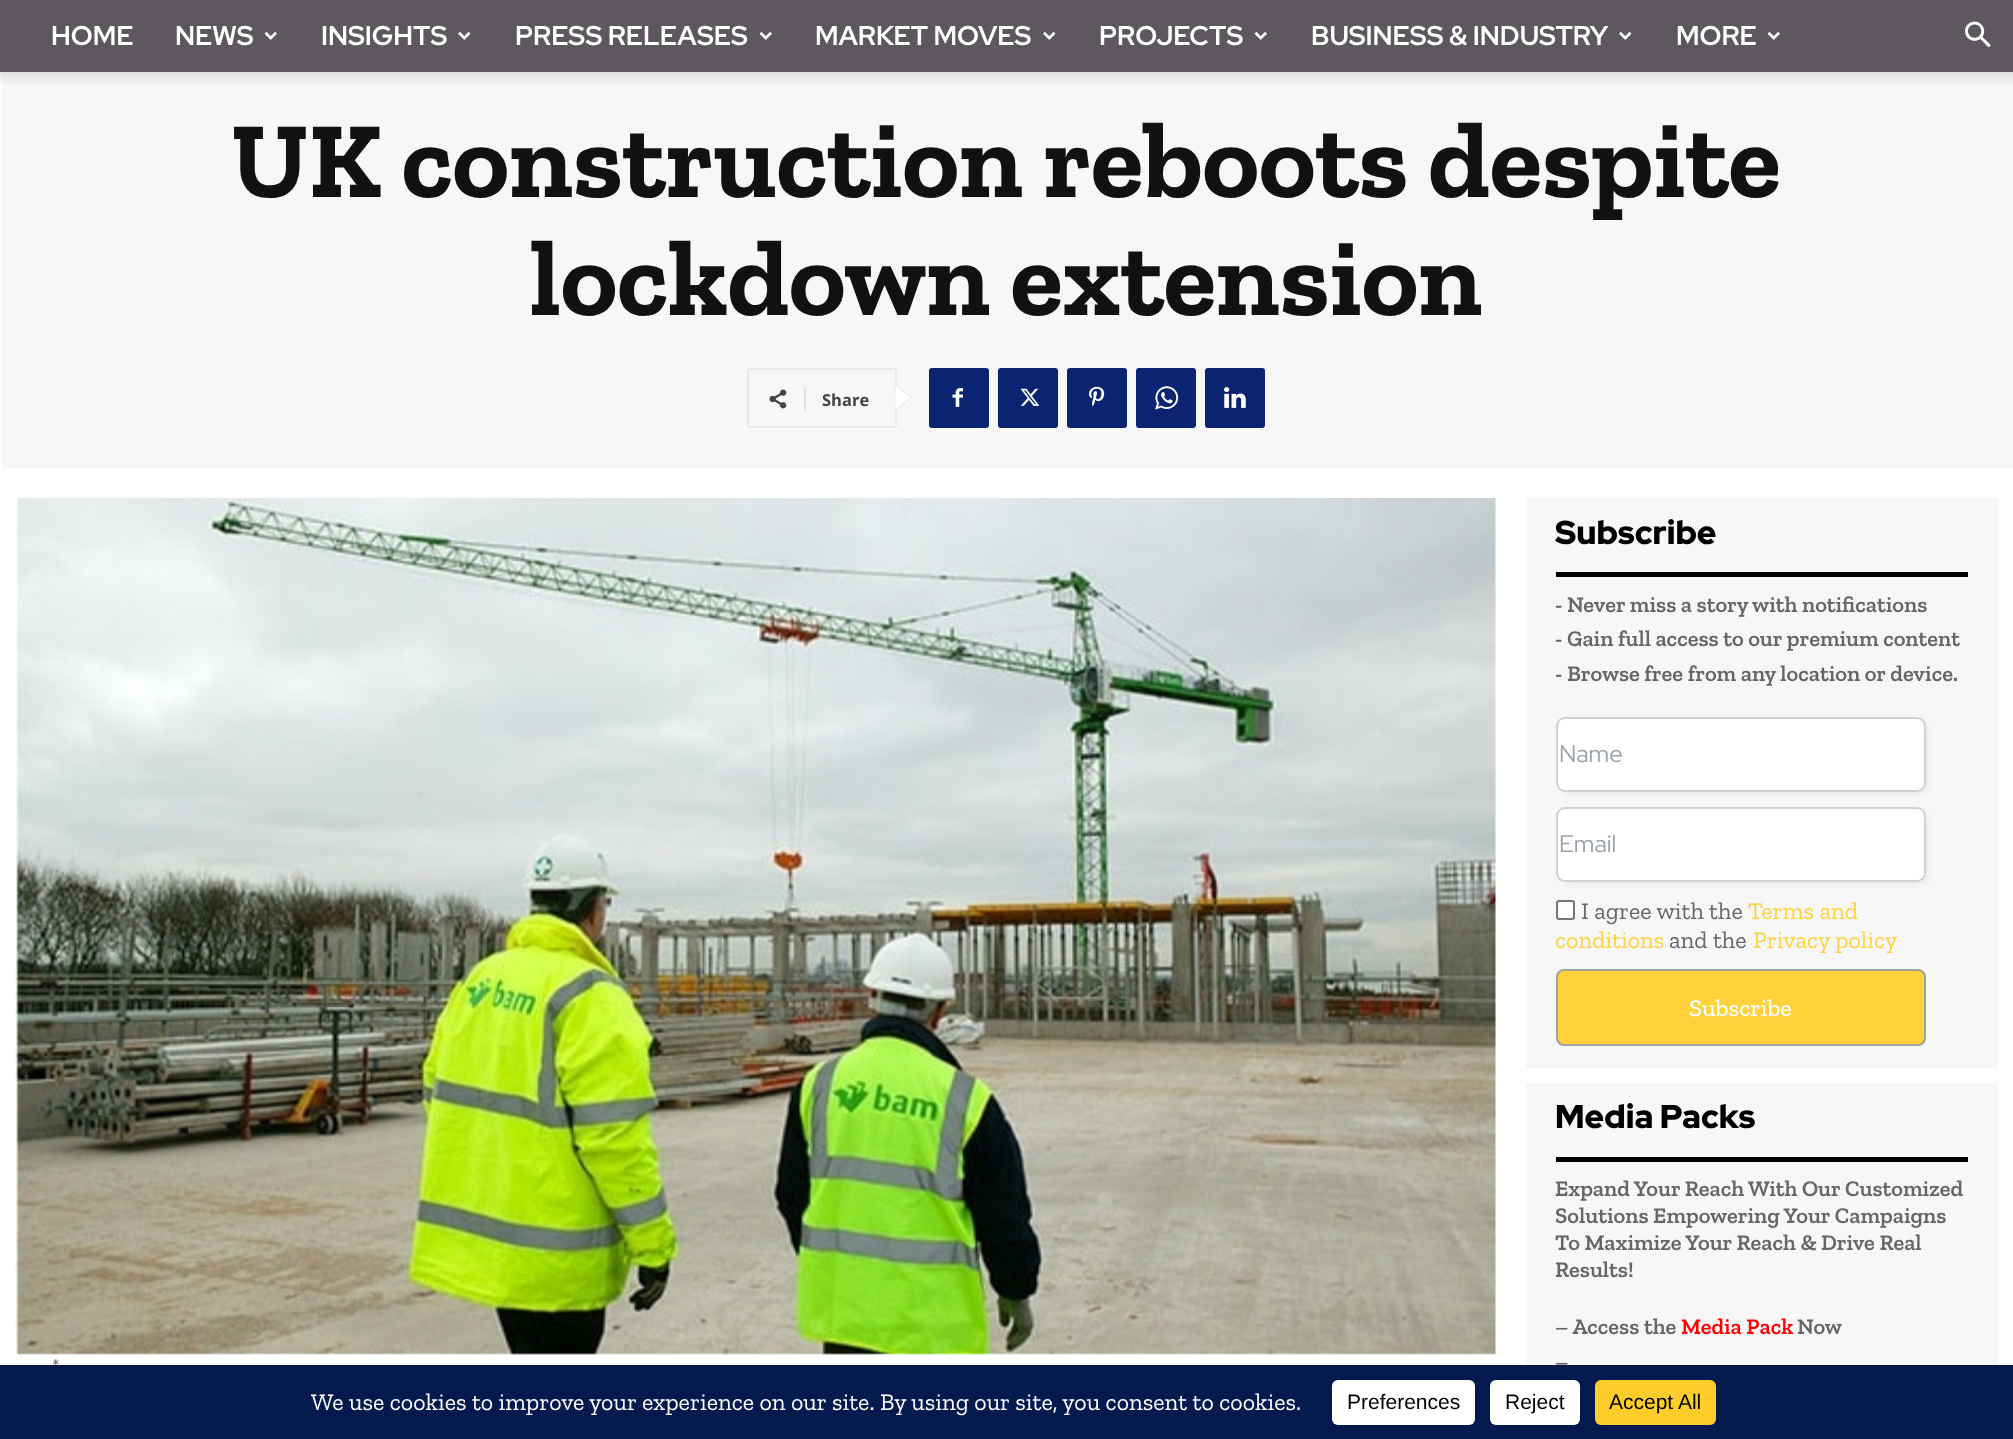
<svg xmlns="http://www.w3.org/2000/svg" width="2013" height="1439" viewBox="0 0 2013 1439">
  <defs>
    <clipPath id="clip1"><path d="M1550 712H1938V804H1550ZM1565 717H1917C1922 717 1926 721 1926 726V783C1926 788 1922 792 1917 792H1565C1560 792 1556 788 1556 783V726C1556 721 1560 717 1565 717Z" clip-rule="evenodd"/></clipPath>
    <clipPath id="clip2"><path d="M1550 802H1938V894H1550ZM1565 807H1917C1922 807 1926 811 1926 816V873C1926 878 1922 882 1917 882H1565C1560 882 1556 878 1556 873V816C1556 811 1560 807 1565 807Z" clip-rule="evenodd"/></clipPath>
    <clipPath id="clip3"><rect x="1556" y="702" width="412" height="344"/></clipPath>
  </defs>
  <rect width="100%" height="100%" fill="rgb(255,255,255)"/>
  <rect x="0" y="0" width="2013" height="72" fill="rgb(92,88,94)"/>
  <g font-family="Red Hat Display" font-size="27" font-weight="bold" fill="rgb(255,255,255)">
    <text x="51" y="45">HOME</text>
    <text x="175" y="45">NEWS</text>
  </g>
  <image x="264" y="32" width="13" height="8" href="pic1.png"/>
  <text x="321" y="45" font-family="Red Hat Display" font-size="27" font-weight="bold" fill="rgb(255,255,255)">INSIGHTS</text>
  <image x="458" y="32" width="13" height="8" href="pic2.png"/>
  <text x="515" y="45" font-family="Red Hat Display" font-size="27" font-weight="bold" fill="rgb(255,255,255)">PRESS RELEASES</text>
  <image x="759" y="32" width="13" height="8" href="pic1.png"/>
  <text x="815" y="45" font-family="Red Hat Display" font-size="27" font-weight="bold" fill="rgb(255,255,255)">MARKET MOVES</text>
  <image x="1043" y="32" width="13" height="8" href="pic2.png"/>
  <text x="1099" y="45" font-family="Red Hat Display" font-size="27" font-weight="bold" fill="rgb(255,255,255)">PROJECTS</text>
  <image x="1254" y="32" width="13" height="8" href="pic1.png"/>
  <text x="1311" y="45" font-family="Red Hat Display" font-size="27" font-weight="bold" fill="rgb(255,255,255)">BUSINESS &amp; INDUSTRY</text>
  <image x="1619" y="32" width="13" height="8" href="pic2.png"/>
  <text x="1676" y="45" font-family="Red Hat Display" font-size="27" font-weight="bold" fill="rgb(255,255,255)">MORE</text>
  <image x="1767" y="32" width="13" height="8" href="pic1.png"/>
  <image x="1965" y="21" width="26" height="26" href="pic3.png"/>
  <rect x="2" y="72" width="2011" height="396" fill="rgb(247,247,247)"/>
  <image x="0" y="72" width="2013" height="13" href="pic4.png"/>
  <g font-family="Zilla Slab" font-size="108" font-weight="bold" fill="rgb(17,17,17)">
    <text x="231" y="197">UK construction reboots despite</text>
    <text x="530" y="315">lockdown extension</text>
  </g>
  <rect x="748" y="369" width="148" height="58" rx="2" fill="none" stroke="rgb(233,233,233)" stroke-width="2"/>
  <path d="M895.5 411V384L912 397.5Z" fill="rgb(233,233,233)"/>
  <image x="769" y="389" width="18" height="20" href="pic5.png"/>
  <rect x="804" y="387" width="2" height="24" fill="rgb(227,227,227)"/>
  <text x="822" y="406" font-family="Open Sans" font-size="16.5" font-weight="bold" fill="rgb(68,68,68)">Share</text>
  <path d="M895.5 409.5V385.5L910.5 397.5Z" fill="rgb(255,255,255)"/>
  <rect x="929" y="368" width="60" height="60" rx="3" fill="rgb(10,36,114)"/>
  <image x="952" y="388" width="11" height="19" href="pic6.png"/>
  <rect x="998" y="368" width="60" height="60" rx="3" fill="rgb(10,36,114)"/>
  <image x="1020" y="388" width="20" height="18" href="pic7.png"/>
  <rect x="1067" y="368" width="60" height="60" rx="3" fill="rgb(10,36,114)"/>
  <image x="1089" y="386" width="16" height="21" href="pic8.png"/>
  <rect x="1136" y="368" width="60" height="60" rx="3" fill="rgb(10,36,114)"/>
  <image x="1155" y="386" width="24" height="24" href="pic9.png"/>
  <rect x="1205" y="368" width="60" height="60" rx="3" fill="rgb(10,36,114)"/>
  <image x="1224" y="387" width="22" height="21" href="pic10.png"/>
  <image x="15" y="498" width="1481" height="857" href="pic11.png"/>
  <text x="52" y="1371" font-family="Zilla Slab" font-size="18" fill="rgb(102,102,102)">*</text>
  <rect x="1526" y="498" width="472" height="570" fill="rgb(247,247,247)"/>
  <rect x="1556" y="572" width="412" height="5" fill="rgb(0,0,0)"/>
  <text x="1555" y="544" font-family="Red Hat Display" font-size="33" font-weight="900" fill="rgb(0,0,0)">Subscribe</text>
  <g font-family="Zilla Slab" font-size="22.5" font-weight="600" fill="rgb(102,102,102)">
    <text>
      <tspan x="1555" y="612">- Never miss a story with notifications</tspan>
      <tspan x="1555" y="646">- Gain full access to our premium content</tspan>
      <tspan x="1555" y="681">- Browse free from any location or device.</tspan>
    </text>
  </g>
  <g clip-path="url(#clip1)">
    <rect x="1563" y="725" width="362" height="66" rx="5" fill="rgb(217,217,217)" filter="blur(4px)"/>
  </g>
  <rect x="1557" y="718" width="368" height="73" rx="8" fill="rgb(255,255,255)" stroke="rgb(209,209,209)" stroke-width="2"/>
  <text x="1559" y="762" font-family="Red Hat Display" font-size="24" fill="rgb(154,162,172)">Name</text>
  <g clip-path="url(#clip2)">
    <rect x="1563" y="815" width="362" height="66" rx="5" fill="rgb(217,217,217)" filter="blur(4px)"/>
  </g>
  <rect x="1557" y="808" width="368" height="73" rx="8" fill="rgb(255,255,255)" stroke="rgb(209,209,209)" stroke-width="2"/>
  <text x="1559" y="852" font-family="Red Hat Display" font-size="24" fill="rgb(154,162,172)">Email</text>
  <rect x="1557" y="901" width="17" height="18" rx="2" fill="rgb(255,255,255)" stroke="rgb(118,118,118)" stroke-width="2"/>
  <text x="1581" y="919" font-family="Zilla Slab" font-size="24" fill="rgb(102,102,102)">I agree with the</text>
  <text x="1748" y="919" font-family="Zilla Slab" font-size="24" fill="rgb(255,209,58)">Terms and</text>
  <g clip-path="url(#clip3)">
    <text x="1555" y="948" font-family="Zilla Slab" font-size="24" fill="rgb(255,209,58)">conditions</text>
  </g>
  <text x="1669" y="948" font-family="Zilla Slab" font-size="24" fill="rgb(102,102,102)">and the</text>
  <text x="1753" y="948" font-family="Zilla Slab" font-size="24" fill="rgb(255,209,58)">Privacy policy</text>
  <rect x="1557" y="970" width="368" height="75" rx="7" fill="rgb(255,209,58)" stroke="rgb(161,161,161)" stroke-width="2"/>
  <text x="1689" y="1016" font-family="Zilla Slab" font-size="24" font-weight="500" fill="rgb(255,255,255)">Subscribe</text>
  <rect x="1526" y="1083" width="472" height="282" fill="rgb(247,247,247)"/>
  <rect x="1556" y="1157" width="412" height="5" fill="rgb(0,0,0)"/>
  <text x="1555" y="1128" font-family="Red Hat Display" font-size="33" font-weight="900" fill="rgb(0,0,0)">Media Packs</text>
  <g font-family="Zilla Slab" font-size="22.5" font-weight="600" fill="rgb(102,102,102)">
    <text>
      <tspan x="1555" y="1196">Expand Your Reach With Our Customized</tspan>
      <tspan x="1555" y="1223">Solutions Empowering Your Campaigns</tspan>
      <tspan x="1555" y="1250">To Maximize Your Reach &amp; Drive Real</tspan>
      <tspan x="1555" y="1277">Results!</tspan>
    </text>
    <text x="1555" y="1334">– Access the</text>
  </g>
  <text x="1681" y="1334" font-family="Zilla Slab" font-size="22.5" font-weight="600" fill="rgb(255,0,0)">Media Pack</text>
  <g font-family="Zilla Slab" font-size="22.5" font-weight="600" fill="rgb(102,102,102)">
    <text x="1797" y="1334">Now</text>
    <text x="1555" y="1369">–</text>
  </g>
  <rect x="0" y="1365" width="2013" height="74" fill="rgb(4,25,78)"/>
  <text x="311" y="1410" font-family="Zilla Slab" font-size="24" fill="rgb(255,255,255)">We use cookies to improve your experience on our site. By using our site, you consent to cookies.</text>
  <rect x="1332" y="1380" width="143" height="45" rx="6" fill="rgb(255,255,255)"/>
  <text x="1347" y="1409" font-family="Liberation Sans" font-size="21" fill="rgb(0,0,0)">Preferences</text>
  <rect x="1490" y="1380" width="90" height="45" rx="6" fill="rgb(255,255,255)"/>
  <text x="1505" y="1409" font-family="Liberation Sans" font-size="21" fill="rgb(0,0,0)">Reject</text>
  <rect x="1595" y="1380" width="121" height="45" rx="6" fill="rgb(255,205,42)"/>
  <text x="1609" y="1409" font-family="Liberation Sans" font-size="21" fill="rgb(0,0,0)">Accept All</text>
</svg>
